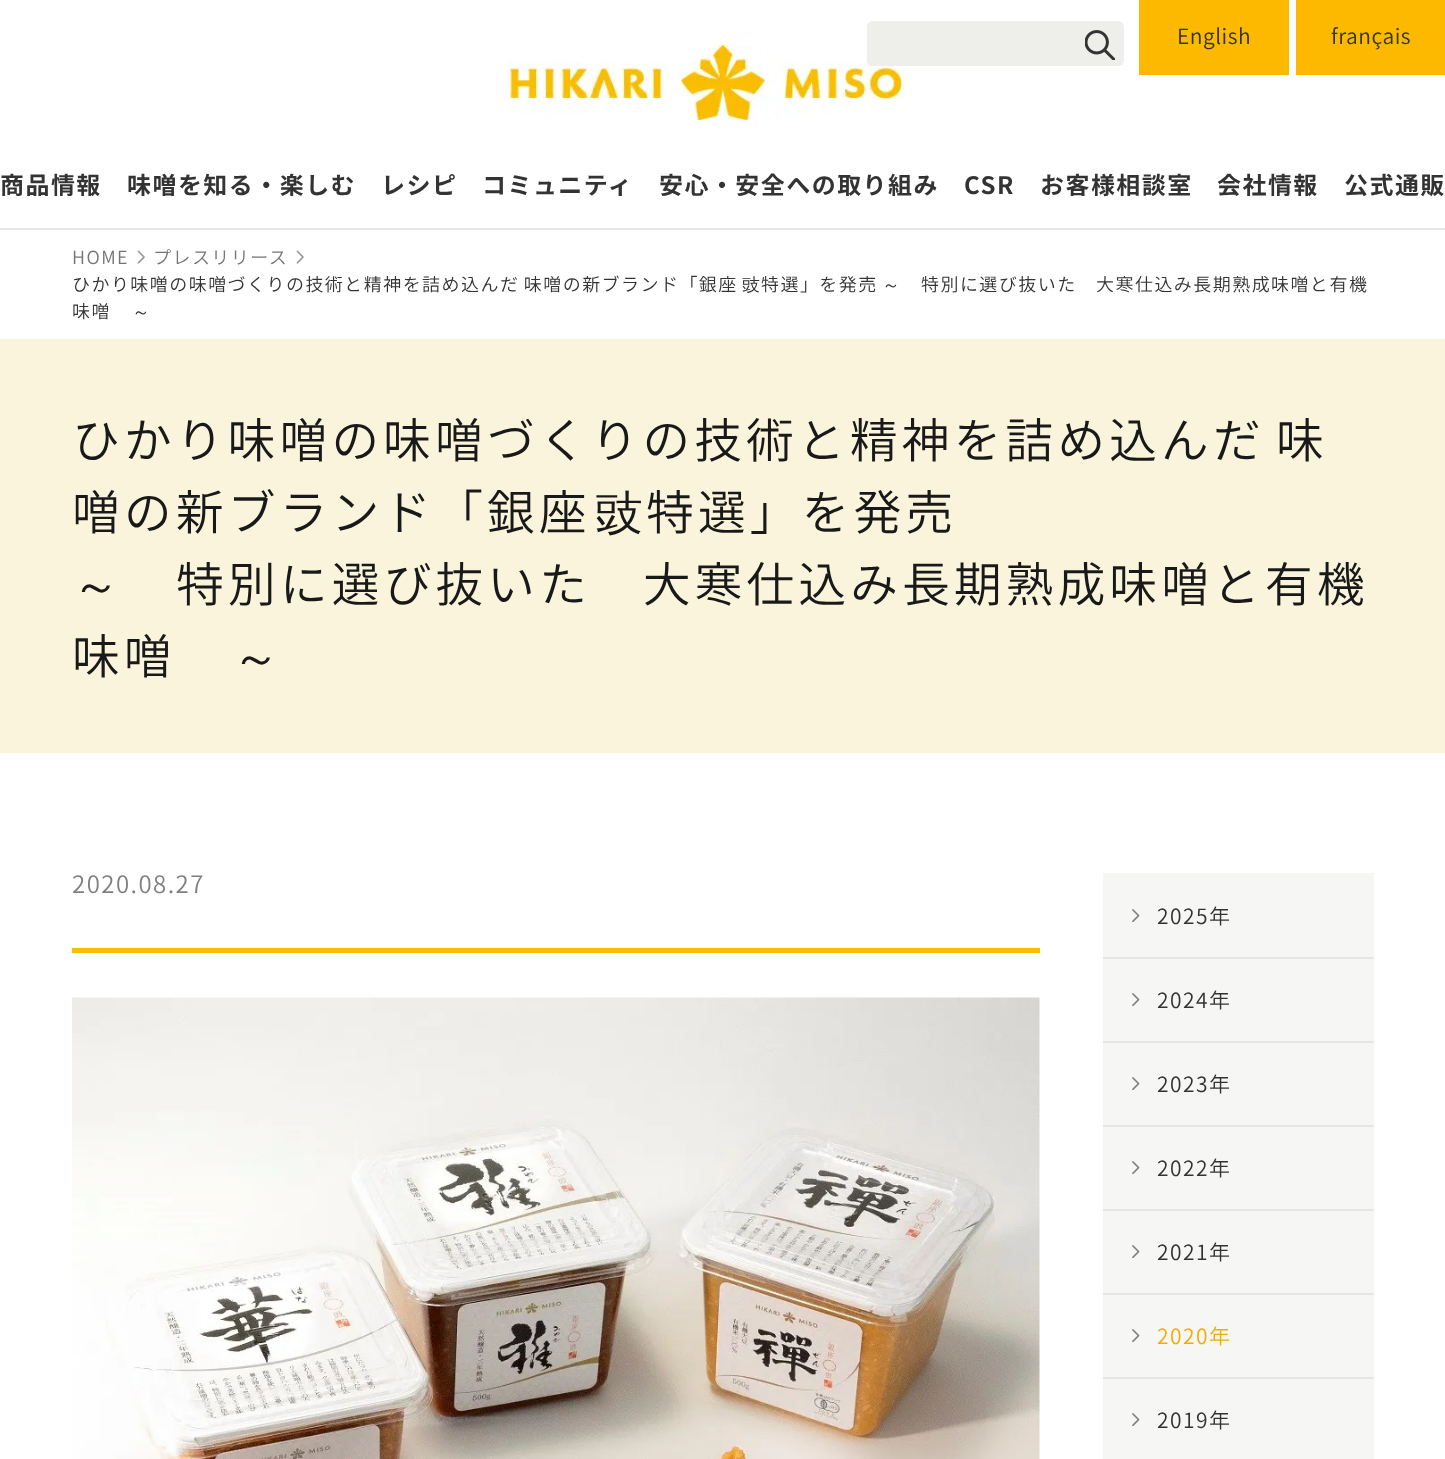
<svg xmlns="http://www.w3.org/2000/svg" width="1445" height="1459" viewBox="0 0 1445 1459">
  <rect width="100%" height="100%" fill="rgb(255,255,255)"/>
  <image x="508" y="45" width="397" height="75" href="pic2.png"/>
  <rect x="867" y="21" width="257" height="45" rx="6" fill="rgb(238,238,238)"/>
  <rect x="867" y="21" width="254" height="45" rx="6" fill="rgb(238,238,234)"/>
  <image x="1085" y="30" width="30" height="30" href="pic1.png"/>
  <rect x="1139" y="0" width="150" height="75" fill="rgb(252,185,0)"/>
  <text x="1177" y="44" font-family="Noto Sans JP" font-size="21" font-weight="300" letter-spacing="0.5" fill="rgb(51,51,51)">English</text>
  <rect x="1296" y="0" width="149" height="75" fill="rgb(252,185,0)"/>
  <text x="1331" y="44" font-family="Noto Sans JP" font-size="21" font-weight="300" letter-spacing="0.5" fill="rgb(51,51,51)">français</text>
  <g font-family="Noto Sans JP" font-size="24" font-weight="bold" letter-spacing="1.45" fill="rgb(51,51,51)">
    <text x="0" y="194">商品情報</text>
    <text x="127" y="194">味噌󠄀󠄀󠄀󠄀󠄀を知る・楽しむ</text>
    <text x="381" y="194">レシピ</text>
    <text x="482" y="194">コミュニティ</text>
    <text x="659" y="194">安心・安全への取り組み</text>
    <text x="964" y="194">CSR</text>
    <text x="1040" y="194">お客様相談室</text>
    <text x="1217" y="194">会社情報</text>
    <text x="1344" y="194">公式通販</text>
  </g>
  <rect x="0" y="228" width="1445" height="2" fill="rgb(229,229,229)"/>
  <text x="72" y="264" font-family="Noto Sans JP" font-size="18" font-weight="300" letter-spacing="1.45" fill="rgb(117,117,117)">HOME</text>
  <image x="137" y="250" width="8" height="14" href="pic3.png"/>
  <text x="153" y="264" font-family="Noto Sans JP" font-size="18" font-weight="300" letter-spacing="1.45" fill="rgb(117,117,117)">プレスリリース</text>
  <image x="296" y="250" width="8" height="14" href="pic3.png"/>
  <text x="72" y="291" word-spacing="-1" font-family="Noto Sans JP" font-size="18" font-weight="300" letter-spacing="1.45" fill="rgb(51,51,51)">ひかり味噌󠄀の味噌󠄀づくりの技術と精神を詰め込んだ 味噌󠄀の新ブランド「銀座</text>
  <text x="742" y="291" font-family="WenQuanYi Zen Hei" font-size="18" font-weight="500" letter-spacing="1.45" fill="rgb(51,51,51)">豉</text>
  <text x="761" y="291" font-family="Noto Sans JP" font-size="18" font-weight="300" letter-spacing="1.45" fill="rgb(51,51,51)">特選」を発売</text>
  <text x="882" y="291" font-family="WenQuanYi Zen Hei" font-size="18" font-weight="500" letter-spacing="1.45" fill="rgb(51,51,51)">～</text>
  <g font-family="Noto Sans JP" font-size="18" font-weight="300" letter-spacing="1.45" fill="rgb(51,51,51)">
    <text x="921" y="291">特別に選び抜いた　大寒仕込み長期熟成味噌󠄀と有機</text>
    <text x="72" y="318">味噌󠄀</text>
  </g>
  <text x="132" y="318" font-family="WenQuanYi Zen Hei" font-size="18" font-weight="500" letter-spacing="1.45" fill="rgb(51,51,51)">～</text>
  <rect x="0" y="339" width="1445" height="414" fill="rgb(251,244,220)"/>
  <g font-family="Noto Sans JP" font-size="48" font-weight="300" letter-spacing="3.85" fill="rgb(25,25,25)">
    <text>
      <tspan x="72" y="458" word-spacing="-3">ひかり味噌󠄀の味噌󠄀づくりの技術と精神を詰め込んだ 味</tspan>
      <tspan x="72" y="530">噌󠄀の新ブランド「銀座</tspan>
    </text>
  </g>
  <text x="595" y="530" font-family="WenQuanYi Zen Hei" font-size="48" font-weight="500" letter-spacing="3.85" fill="rgb(25,25,25)">豉</text>
  <text x="646" y="530" font-family="Noto Sans JP" font-size="48" font-weight="300" letter-spacing="3.85" fill="rgb(25,25,25)">特選」を発売</text>
  <text x="72" y="602" font-family="WenQuanYi Zen Hei" font-size="48" font-weight="500" letter-spacing="3.85" fill="rgb(25,25,25)">～</text>
  <g font-family="Noto Sans JP" font-size="48" font-weight="300" letter-spacing="3.85" fill="rgb(25,25,25)">
    <text x="176" y="602">特別に選び抜いた　大寒仕込み長期熟成味噌󠄀と有機</text>
    <text x="72" y="674">味噌󠄀</text>
  </g>
  <text x="232" y="674" font-family="WenQuanYi Zen Hei" font-size="48" font-weight="500" letter-spacing="3.85" fill="rgb(25,25,25)">～</text>
  <text x="72" y="893" font-family="Noto Sans JP" font-size="24" font-weight="300" letter-spacing="1.45" fill="rgb(128,128,128)">2020.08.27</text>
  <rect x="72" y="948" width="968" height="5" fill="rgb(250,190,0)"/>
  <image x="72" y="997" width="968" height="462" href="pic4.png"/>
  <rect x="1103" y="873" width="271" height="586" fill="rgb(246,246,244)"/>
  <image x="1132" y="909" width="8" height="14" href="pic5.png"/>
  <text x="1157" y="924" font-family="Noto Sans JP" font-size="21" font-weight="300" letter-spacing="1.45" fill="rgb(51,51,51)">2025年</text>
  <rect x="1103" y="957" width="271" height="2" fill="rgb(230,230,230)"/>
  <image x="1132" y="993" width="8" height="14" href="pic5.png"/>
  <text x="1157" y="1008" font-family="Noto Sans JP" font-size="21" font-weight="300" letter-spacing="1.45" fill="rgb(51,51,51)">2024年</text>
  <rect x="1103" y="1041" width="271" height="2" fill="rgb(230,230,230)"/>
  <image x="1132" y="1077" width="8" height="14" href="pic5.png"/>
  <text x="1157" y="1092" font-family="Noto Sans JP" font-size="21" font-weight="300" letter-spacing="1.45" fill="rgb(51,51,51)">2023年</text>
  <rect x="1103" y="1125" width="271" height="2" fill="rgb(230,230,230)"/>
  <image x="1132" y="1161" width="8" height="14" href="pic5.png"/>
  <text x="1157" y="1176" font-family="Noto Sans JP" font-size="21" font-weight="300" letter-spacing="1.45" fill="rgb(51,51,51)">2022年</text>
  <rect x="1103" y="1209" width="271" height="2" fill="rgb(230,230,230)"/>
  <image x="1132" y="1245" width="8" height="14" href="pic5.png"/>
  <text x="1157" y="1260" font-family="Noto Sans JP" font-size="21" font-weight="300" letter-spacing="1.45" fill="rgb(51,51,51)">2021年</text>
  <rect x="1103" y="1293" width="271" height="2" fill="rgb(230,230,230)"/>
  <image x="1132" y="1329" width="8" height="14" href="pic5.png"/>
  <text x="1157" y="1344" font-family="Noto Sans JP" font-size="21" font-weight="300" letter-spacing="1.45" fill="rgb(243,172,0)">2020年</text>
  <rect x="1103" y="1377" width="271" height="2" fill="rgb(230,230,230)"/>
  <image x="1132" y="1413" width="8" height="14" href="pic5.png"/>
  <text x="1157" y="1428" font-family="Noto Sans JP" font-size="21" font-weight="300" letter-spacing="1.45" fill="rgb(51,51,51)">2019年</text>
</svg>
